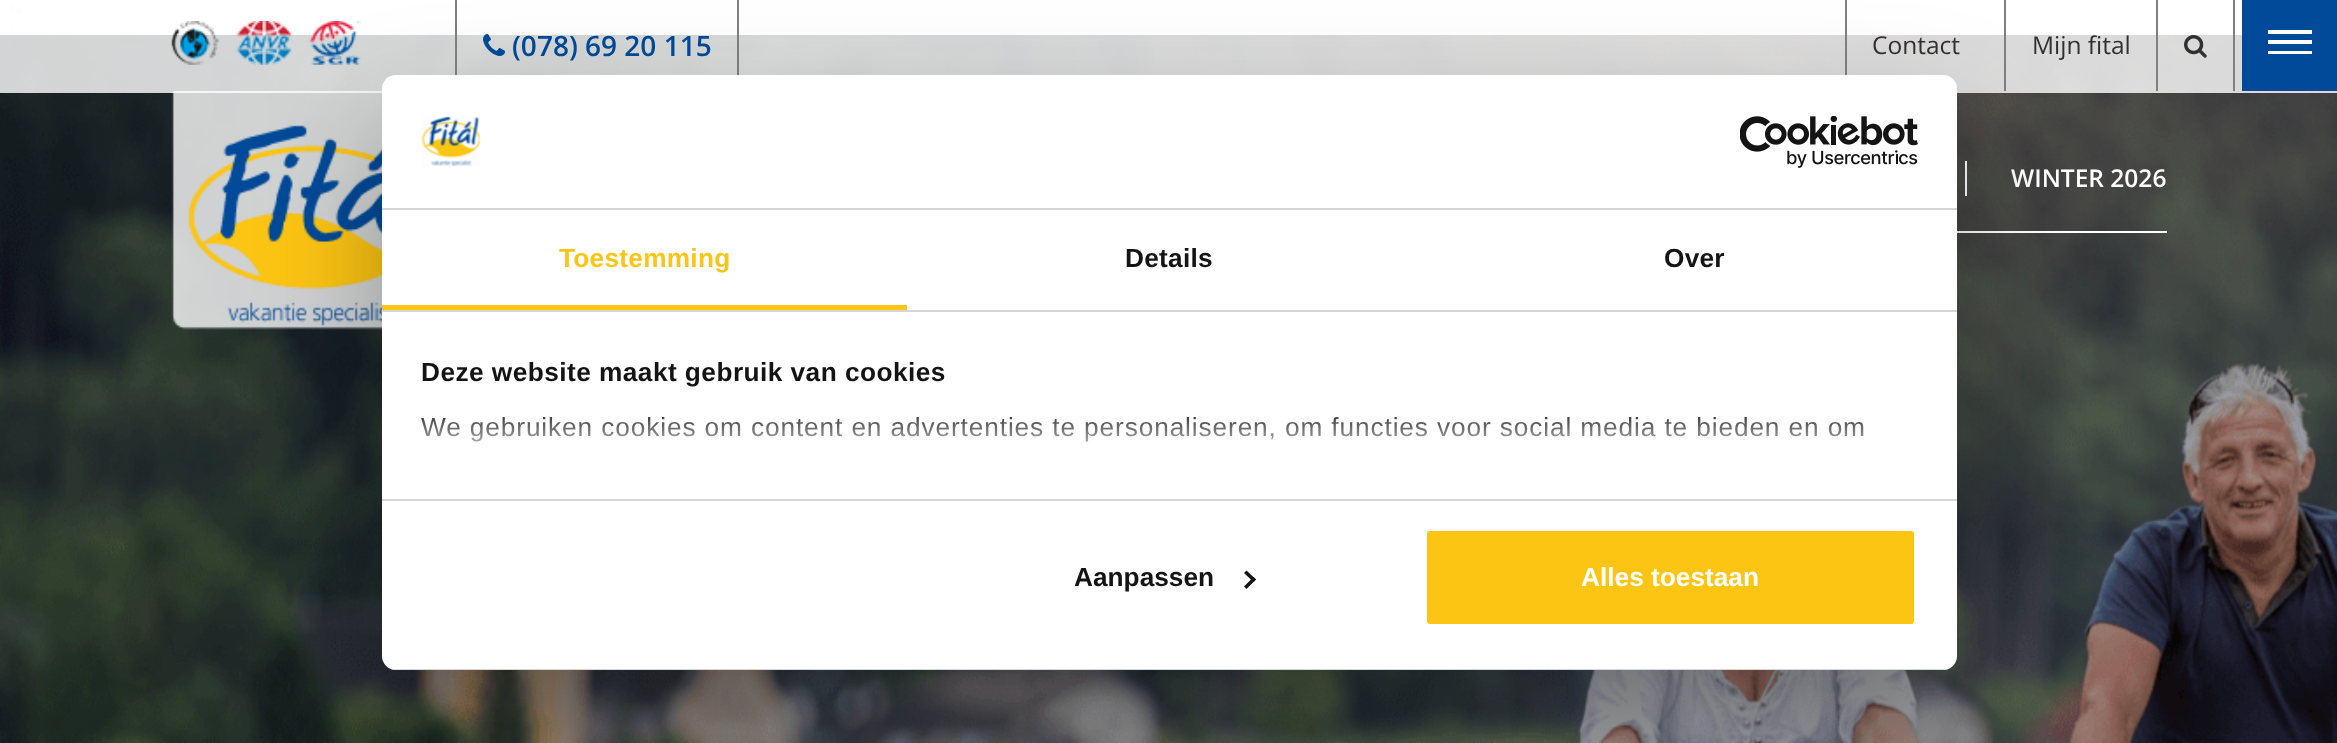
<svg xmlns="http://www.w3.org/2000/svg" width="2337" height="743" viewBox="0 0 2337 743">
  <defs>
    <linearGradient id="g1" gradientUnits="userSpaceOnUse" x1="1152" y1="499" x2="1152" y2="406"><stop offset="0" stop-color="rgb(255,255,255)"/><stop offset="0.5" stop-color="rgb(255,255,255)" stop-opacity="0.8"/><stop offset="1" stop-color="rgb(255,255,255)" stop-opacity="0"/></linearGradient>
    <clipPath id="clip1"><rect x="382" y="75" width="1575" height="595" rx="14"/></clipPath>
  </defs>
  <rect width="100%" height="100%" fill="rgb(255,255,255)"/>
  <image x="1" y="5" width="23" height="24" href="pic1.png"/>
  <image x="0" y="35" width="2337" height="708" href="pic2.png"/>
  <image x="171" y="91" width="211" height="239" href="pic6.png"/>
  <rect x="0" y="5" width="2337" height="88" fill="rgba(255,255,255,0.81)"/>
  <image x="171" y="21" width="190" height="44" href="pic3.png"/>
  <rect x="737" y="0" width="2" height="75" fill="rgb(128,128,128)"/>
  <rect x="455" y="0" width="2" height="75" fill="rgb(128,128,128)"/>
  <image x="483" y="34" width="22" height="22" href="pic4.png"/>
  <text x="512" y="56" font-family="Open Sans" font-size="28" font-weight="600" fill="rgb(0,74,153)">(078) 69 20 115</text>
  <rect x="1845" y="0" width="2" height="75" fill="rgb(128,128,128)"/>
  <text x="1872" y="54" font-family="Open Sans" font-size="24.5" fill="rgb(49,49,49)">Contact</text>
  <rect x="2004" y="0" width="2" height="91" fill="rgb(128,128,128)"/>
  <text x="2032" y="54" font-family="Open Sans" font-size="24.5" fill="rgb(49,49,49)">Mijn fital</text>
  <rect x="2233" y="0" width="2" height="91" fill="rgb(128,128,128)"/>
  <rect x="2156" y="0" width="2" height="91" fill="rgb(128,128,128)"/>
  <image x="2184" y="35" width="23" height="23" href="pic5.png"/>
  <rect x="2242" y="0" width="95" height="91" fill="rgb(0,74,153)"/>
  <rect x="2268" y="30" width="44" height="4" fill="rgb(255,255,255)"/>
  <rect x="2268" y="40" width="44" height="4" fill="rgb(255,255,255)"/>
  <rect x="2268" y="51" width="44" height="3" fill="rgb(255,255,255)"/>
  <rect x="1957" y="231" width="210" height="2" fill="rgb(255,255,255)"/>
  <rect x="1965" y="161" width="2" height="35" fill="rgb(255,255,255)"/>
  <text x="2011" y="187" font-family="Open Sans" font-size="24.5" font-weight="600" fill="rgb(255,255,255)">WINTER 2026</text>
  <rect x="382" y="131" width="1575" height="595" rx="14" fill="rgba(0,0,0,0.3)" filter="blur(59.5px)"/>
  <rect x="382" y="75" width="1575" height="595" rx="14" fill="rgb(255,255,255)"/>
  <rect x="382" y="208" width="1575" height="2" fill="rgb(214,214,214)"/>
  <image x="421" y="116" width="60" height="51" href="pic7.png"/>
  <image x="1740" y="116" width="178" height="52" href="pic8.png"/>
  <rect x="382" y="310" width="1575" height="2" fill="rgb(214,214,214)"/>
  <rect x="382" y="305" width="525" height="5" fill="rgb(253,197,19)"/>
  <text x="559" y="267" font-family="Liberation Sans" font-size="26.25" font-weight="bold" letter-spacing="0.25" fill="rgb(253,197,19)">Toestemming</text>
  <g font-family="Liberation Sans" font-size="26.25" font-weight="bold" letter-spacing="0.25" fill="rgb(20,20,20)">
    <text x="1125" y="267">Details</text>
    <text x="1664" y="267">Over</text>
  </g>
  <rect x="382" y="499" width="1575" height="2" fill="rgb(214,214,214)"/>
  <text x="421" y="381" font-family="Liberation Sans" font-size="26.25" font-weight="bold" letter-spacing="0.45" fill="rgb(20,20,20)">Deze website maakt gebruik van cookies</text>
  <text x="421" y="436" font-family="Liberation Sans" font-size="26.25" letter-spacing="0.88" fill="rgb(20,20,20)">We gebruiken cookies om content en advertenties te personaliseren, om functies voor social media te bieden en om</text>
  <rect x="421" y="417" width="1442" height="25" fill="url(#g1)"/>
  <g clip-path="url(#clip1)">
    <rect x="391" y="669" width="1557" height="1" fill="rgb(214,214,214)"/>
  </g>
  <text x="1074" y="586" font-family="Liberation Sans" font-size="26.25" font-weight="bold" fill="rgb(20,20,20)">Aanpassen</text>
  <path d="M1246.5 570.5L1256 579.5L1253.5 582L1244 573Z" fill="rgb(20,20,20)"/>
  <path d="M1253.5 577L1256 579.5L1246.5 589L1244 586.5Z" fill="rgb(20,20,20)"/>
  <rect x="1425" y="529" width="491" height="97" rx="5" fill="rgb(253,197,19)" stroke="rgb(255,255,255)" stroke-width="4"/>
  <text x="1581" y="586" font-family="Liberation Sans" font-size="26.25" font-weight="bold" fill="rgb(255,255,255)">Alles toestaan</text>
</svg>
